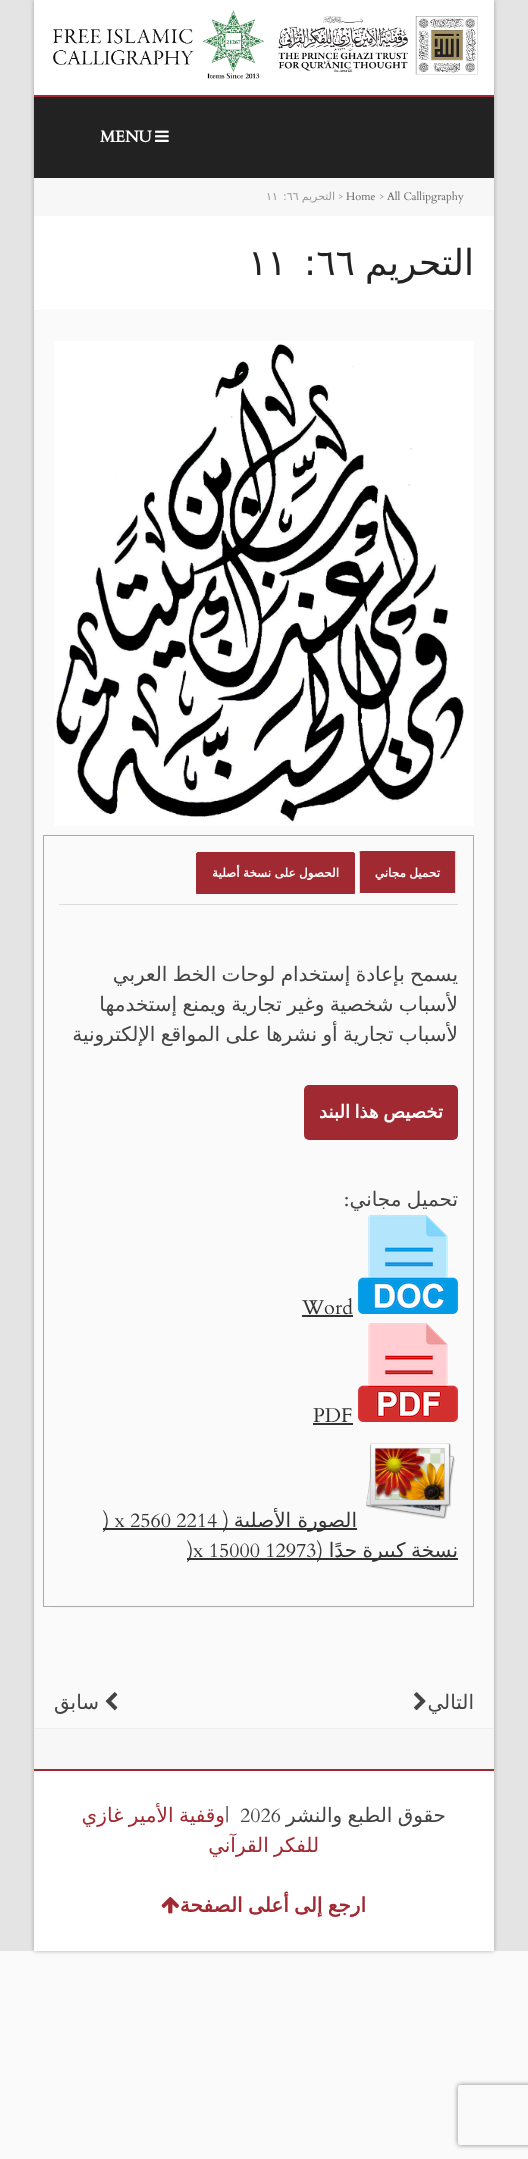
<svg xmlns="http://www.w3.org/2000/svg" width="528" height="2159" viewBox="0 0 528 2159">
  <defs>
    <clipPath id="clip1"><path d="M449 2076H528V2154H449ZM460 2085H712C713 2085 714 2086 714 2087V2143C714 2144 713 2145 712 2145H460C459 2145 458 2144 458 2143V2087C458 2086 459 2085 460 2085Z" clip-rule="evenodd"/></clipPath>
  </defs>
  <rect width="100%" height="100%" fill="rgb(250,250,250)"/>
  <rect x="0" y="0" width="528" height="1951" fill="rgb(228,228,228)"/>
  <rect x="34" y="0" width="460" height="1951" fill="rgba(0,0,0,0.3)" filter="blur(2px)"/>
  <rect x="34" y="311" width="460" height="1417" fill="rgb(250,250,250)"/>
  <rect x="34" y="0" width="460" height="95" fill="rgb(255,255,255)"/>
  <image x="53" y="10" width="425" height="69" href="pic1.png"/>
  <rect x="34" y="97" width="460" height="81" fill="rgb(34,34,34)"/>
  <rect x="34" y="95" width="460" height="2" fill="rgb(160,41,50)"/>
  <image x="155" y="130" width="14" height="12" href="pic2.png"/>
  <text x="100" y="142" font-family="Cardo" font-size="16" font-weight="bold" fill="rgb(255,255,255)">MENU</text>
  <rect x="34" y="178" width="460" height="38" fill="rgb(247,247,247)"/>
  <text x="387" y="200" font-family="Cardo" font-size="11" fill="rgb(102,102,102)">All Callipgraphy</text>
  <text x="379" y="200" font-family="Cardo" font-size="11" fill="rgb(153,153,153)">&gt;</text>
  <text x="346" y="200" font-family="Cardo" font-size="11" fill="rgb(102,102,102)">Home</text>
  <text x="338" y="200" font-family="Cardo" font-size="11" fill="rgb(153,153,153)">&gt;</text>
  <text x="335" y="200" font-family="DejaVu Sans" font-size="11" direction="rtl" fill="rgb(153,153,153)">التحريم</text>
  <g font-family="DejaVu Sans" font-size="11" fill="rgb(153,153,153)">
    <text x="283" y="200">:٦٦</text>
    <text x="266" y="200">١١</text>
  </g>
  <rect x="34" y="216" width="460" height="95" fill="rgb(255,255,255)"/>
  <path d="M34 310.5H494" fill="none" stroke="rgb(239,239,239)" stroke-dasharray="1 1"/>
  <text x="474" y="275" font-family="DejaVu Sans" font-size="36" direction="rtl" fill="rgb(34,34,34)">التحريم</text>
  <g font-family="DejaVu Sans" font-size="36" fill="rgb(34,34,34)">
    <text x="304" y="275">:٦٦</text>
    <text x="248" y="275">١١</text>
  </g>
  <image x="54" y="341" width="420" height="485" href="pic3.png"/>
  <rect x="43.5" y="835.5" width="430" height="771" fill="none" stroke="rgb(170,170,170)"/>
  <path d="M361 853H455V893H360V853Z" fill="rgb(160,41,50)"/>
  <path d="M361 851L359 852L360 853H455L456 852L454 851Z" fill="rgb(160,41,50)"/>
  <path d="M456 894C456 889 457 853 456 852L455 853V893Z" fill="rgb(221,221,221)"/>
  <path d="M456 894L455 893H360L359 894Z" fill="rgb(255,255,255)"/>
  <path d="M359 894L360 893V853L359 852V853Z" fill="rgb(221,221,221)"/>
  <text x="440" y="877" word-spacing="-0.5" font-family="DejaVu Sans" font-size="12" font-weight="bold" direction="rtl" fill="rgb(255,255,255)">تحميل مجاني</text>
  <path d="M198 852.5H353C354 852.5 354.5 853 354.5 854V893.5H196.5V854C196.5 853 197 852.5 198 852.5Z" fill="rgb(160,41,50)" stroke="rgb(160,41,50)"/>
  <text x="339" y="877" word-spacing="-0.5" font-family="DejaVu Sans" font-size="12" font-weight="bold" direction="rtl" fill="rgb(255,255,255)">الحصول على نسخة أصلية</text>
  <rect x="59" y="904" width="399" height="1" fill="rgb(221,221,221)"/>
  <g font-family="DejaVu Sans" font-size="20" direction="rtl" fill="rgb(68,68,68)">
    <text>
      <tspan x="458" y="981" word-spacing="-1">يسمح بإعادة إستخدام لوحات الخط العربي</tspan>
      <tspan x="458" y="1011" word-spacing="-1">لأسباب شخصية وغير تجارية ويمنع إستخدمها</tspan>
      <tspan x="458" y="1041" word-spacing="-1">لأسباب تجارية أو نشرها على المواقع الإلكترونية</tspan>
    </text>
  </g>
  <rect x="304" y="1085" width="154" height="55" rx="5" fill="rgb(160,41,50)"/>
  <text x="443" y="1118" word-spacing="-1" font-family="DejaVu Sans" font-size="18" font-weight="bold" direction="rtl" fill="rgb(255,255,255)">تخصيص هذا البند</text>
  <text x="458" y="1206" word-spacing="-1" font-family="DejaVu Sans" font-size="20" direction="rtl" fill="rgb(68,68,68)">تحميل مجاني</text>
  <text x="349" y="1206" font-family="Cardo" font-size="20" direction="rtl" fill="rgb(68,68,68)">:</text>
  <image x="358" y="1215" width="100" height="99" href="pic4.png"/>
  <text x="302" y="1314" font-family="Cardo" font-size="20" fill="rgb(51,51,51)">Word</text>
  <rect x="302" y="1315" width="51" height="2" fill="rgb(51,51,51)"/>
  <image x="358" y="1323" width="100" height="99" href="pic5.png"/>
  <text x="313" y="1422" font-family="Cardo" font-size="20" fill="rgb(51,51,51)">PDF</text>
  <rect x="313" y="1423" width="40" height="2" fill="rgb(51,51,51)"/>
  <image x="366" y="1443" width="89" height="76" href="pic6.png"/>
  <rect x="103" y="1528" width="254" height="2" fill="rgb(51,51,51)"/>
  <text x="357" y="1527" font-family="DejaVu Sans" font-size="20" direction="rtl" fill="rgb(51,51,51)">الصورة الأصلية</text>
  <text x="229" y="1527" font-family="Cardo" font-size="20" direction="rtl" fill="rgb(51,51,51)">(</text>
  <text x="103" y="1527" font-family="Cardo" font-size="20" fill="rgb(51,51,51)">) x 2560 2214</text>
  <rect x="187" y="1558" width="271" height="2" fill="rgb(51,51,51)"/>
  <text x="458" y="1557" word-spacing="-1" font-family="DejaVu Sans" font-size="20" direction="rtl" fill="rgb(51,51,51)">نسخة كبيرة جدًا</text>
  <text x="323" y="1557" font-family="Cardo" font-size="20" direction="rtl" fill="rgb(51,51,51)">(</text>
  <text x="187" y="1557" font-family="Cardo" font-size="20" fill="rgb(51,51,51)">)x 15000 12973</text>
  <path d="M54 1607.5H474" fill="none" stroke="rgb(239,239,239)" stroke-dasharray="1 1"/>
  <text x="474" y="1709" font-family="DejaVu Sans" font-size="20" direction="rtl" fill="rgb(68,68,68)">التالي</text>
  <image x="414" y="1692" width="12" height="19" href="pic7.png"/>
  <image x="105" y="1692" width="13" height="19" href="pic8.png"/>
  <text x="99" y="1709" font-family="DejaVu Sans" font-size="20" direction="rtl" fill="rgb(68,68,68)">سابق</text>
  <rect x="34" y="1729" width="460" height="40" fill="rgb(247,247,247)"/>
  <rect x="34" y="1728" width="460" height="1" fill="rgb(239,239,239)"/>
  <rect x="34" y="1771" width="460" height="180" fill="rgb(255,255,255)"/>
  <rect x="34" y="1769" width="460" height="2" fill="rgb(160,41,50)"/>
  <text x="446" y="1822" word-spacing="-1" font-family="DejaVu Sans" font-size="20" direction="rtl" fill="rgb(68,68,68)">حقوق الطبع والنشر</text>
  <g font-family="Cardo" font-size="20" fill="rgb(68,68,68)">
    <text x="240" y="1822">2026</text>
    <text x="225" y="1822">|</text>
  </g>
  <g font-family="DejaVu Sans" font-size="20" direction="rtl" fill="rgb(160,41,50)">
    <text x="225" y="1822" word-spacing="-1">وقفية الأمير غازي</text>
    <text x="319" y="1852" word-spacing="-1">للفكر القرآني</text>
  </g>
  <text x="366" y="1912" word-spacing="-1" font-family="DejaVu Sans" font-size="20" font-weight="bold" direction="rtl" fill="rgb(160,41,50)">ارجع إلى أعلى الصفحة</text>
  <image x="161" y="1897" width="18" height="17" href="pic9.png"/>
  <g clip-path="url(#clip1)">
    <rect x="458" y="2085" width="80" height="60" rx="2" fill="rgb(128,128,128)" filter="blur(2.5px)"/>
  </g>
</svg>
